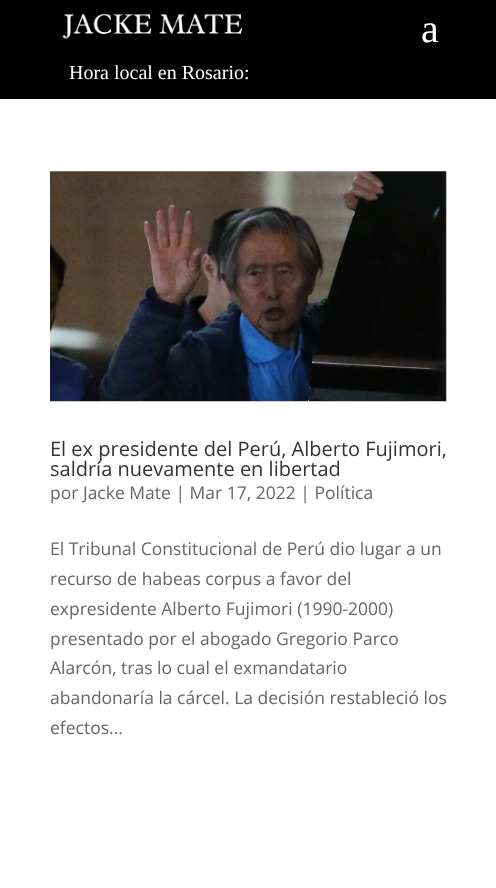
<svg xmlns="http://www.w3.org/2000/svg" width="496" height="888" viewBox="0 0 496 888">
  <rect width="100%" height="100%" fill="rgb(255,255,255)"/>
  <rect x="0" y="0" width="496" height="99" fill="rgb(0,0,0)"/>
  <image x="62" y="13" width="180" height="26" href="pic1.png"/>
  <text x="421" y="42" font-family="Liberation Serif" font-size="40" fill="rgb(255,255,255)">a</text>
  <text x="69" y="79" font-family="Liberation Serif" font-size="20" fill="rgb(255,255,255)">Hora local en Rosario:</text>
  <image x="50" y="171" width="397" height="231" href="pic2.png"/>
  <g font-family="Open Sans" font-size="20" fill="rgb(51,51,51)">
    <text>
      <tspan x="50" y="456">El ex presidente del Perú, Alberto Fujimori,</tspan>
      <tspan x="50" y="476">saldría nuevamente en libertad</tspan>
    </text>
  </g>
  <g font-family="Open Sans" font-size="17.5" fill="rgb(102,102,102)">
    <text x="50" y="499">por Jacke Mate | Mar 17, 2022 | Política</text>
    <text>
      <tspan x="50" y="555">El Tribunal Constitucional de Perú dio lugar a un</tspan>
      <tspan x="50" y="585">recurso de habeas corpus a favor del</tspan>
      <tspan x="50" y="615">expresidente Alberto Fujimori (1990-2000)</tspan>
      <tspan x="50" y="645">presentado por el abogado Gregorio Parco</tspan>
      <tspan x="50" y="674">Alarcón, tras lo cual el exmandatario</tspan>
      <tspan x="50" y="704">abandonaría la cárcel. La decisión restableció los</tspan>
      <tspan x="50" y="734">efectos...</tspan>
    </text>
  </g>
</svg>
